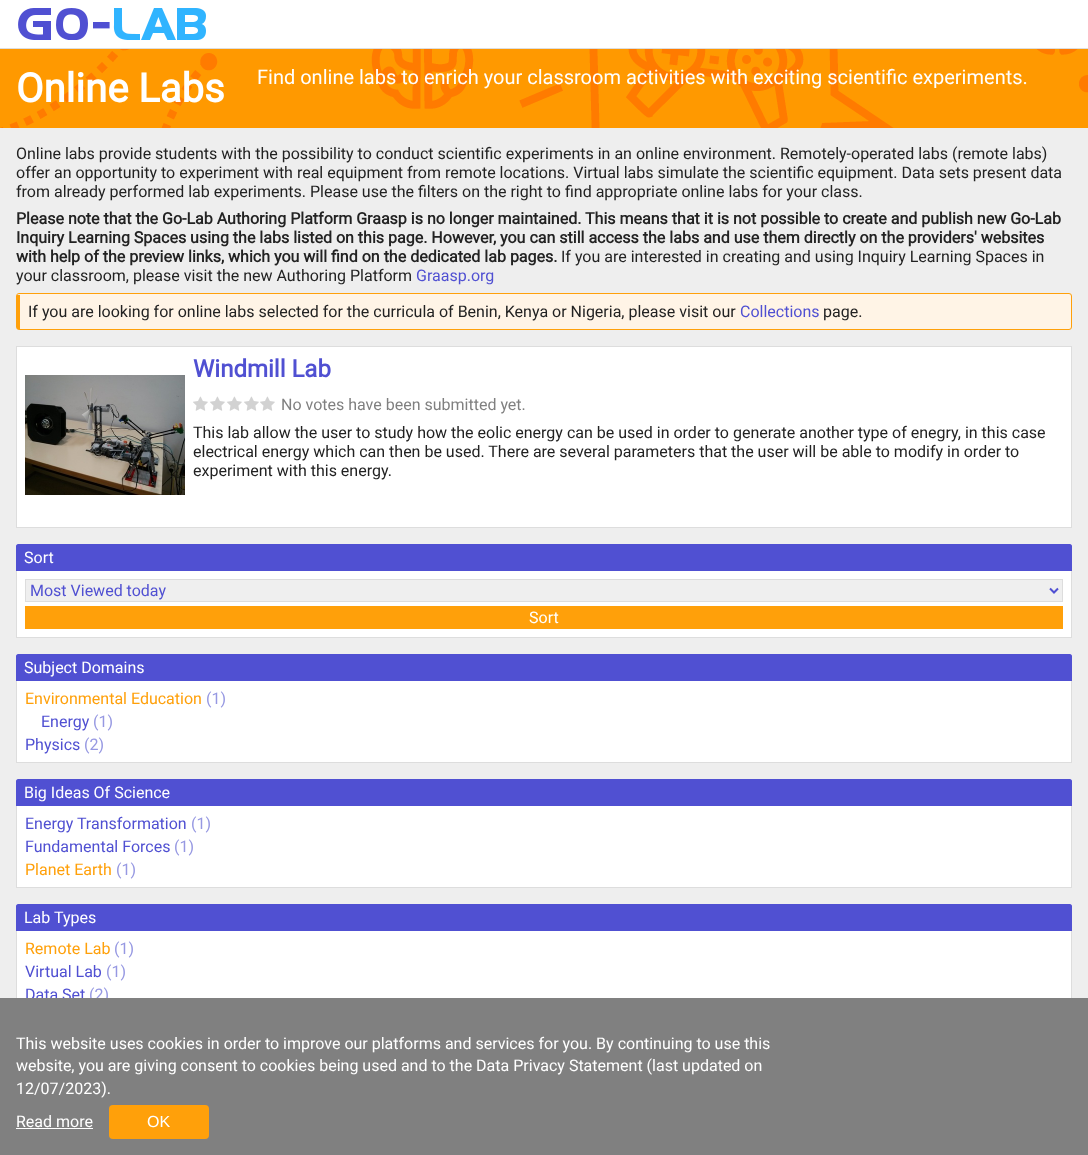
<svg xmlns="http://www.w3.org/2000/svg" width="1088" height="1155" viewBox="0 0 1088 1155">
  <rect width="100%" height="100%" fill="rgb(238,238,238)"/>
  <rect x="0" y="0" width="1088" height="48" fill="rgb(255,255,255)"/>
  <rect x="0" y="48" width="1088" height="1" fill="rgb(221,221,221)"/>
  <image x="18" y="8" width="188" height="32" href="pic1.png"/>
  <image x="0" y="49" width="1088" height="79" href="pic2.png"/>
  <text x="16" y="102" font-family="Roboto" font-size="40" font-weight="bold" fill="rgb(255,255,255)">Online Labs</text>
  <text x="257" y="84" font-family="Roboto" font-size="20" fill="rgb(255,255,255)">Find online labs to enrich your classroom activities with exciting scientific experiments.</text>
  <g font-family="Roboto" font-size="16" fill="rgb(34,34,34)">
    <text>
      <tspan x="16" y="159">Online labs provide students with the possibility to conduct scientific experiments in an online environment. Remotely-operated labs (remote labs)</tspan>
      <tspan x="16" y="178">offer an opportunity to experiment with real equipment from remote locations. Virtual labs simulate the scientific equipment. Data sets present data</tspan>
      <tspan x="16" y="197">from already performed lab experiments. Please use the filters on the right to find appropriate online labs for your class.</tspan>
    </text>
  </g>
  <g font-family="Roboto" font-size="16" font-weight="bold" fill="rgb(34,34,34)">
    <text>
      <tspan x="16" y="224">Please note that the Go-Lab Authoring Platform Graasp is no longer maintained. This means that it is not possible to create and publish new Go-Lab</tspan>
      <tspan x="16" y="243">Inquiry Learning Spaces using the labs listed on this page. However, you can still access the labs and use them directly on the providers' websites</tspan>
      <tspan x="16" y="262">with help of the preview links, which you will find on the dedicated lab pages.</tspan>
    </text>
  </g>
  <g font-family="Roboto" font-size="16" fill="rgb(34,34,34)">
    <text x="561" y="262">If you are interested in creating and using Inquiry Learning Spaces in</text>
    <text x="16" y="281">your classroom, please visit the new Authoring Platform</text>
  </g>
  <text x="416" y="281" font-family="Roboto" font-size="16" fill="rgb(80,80,210)">Graasp.org</text>
  <path d="M20 294H1069C1070 294 1071 295 1071 296V327C1071 328 1070 329 1069 329H20Z" fill="rgb(255,244,230)"/>
  <rect x="16.5" y="293.5" width="1055" height="36" rx="2.5" fill="none" stroke="rgb(255,160,10)"/>
  <rect x="17" y="295" width="3" height="34" fill="rgb(255,160,10)"/>
  <text x="28" y="317" font-family="Roboto" font-size="16" fill="rgb(34,34,34)">If you are looking for online labs selected for the curricula of Benin, Kenya or Nigeria, please visit our</text>
  <text x="740" y="317" font-family="Roboto" font-size="16" fill="rgb(80,80,210)">Collections</text>
  <text x="823" y="317" font-family="Roboto" font-size="16" fill="rgb(34,34,34)">page.</text>
  <rect x="16.5" y="346.5" width="1055" height="181" fill="rgb(255,255,255)" stroke="rgb(221,221,221)"/>
  <text x="193" y="377" font-family="Roboto" font-size="24" font-weight="bold" fill="rgb(80,80,210)">Windmill Lab</text>
  <image x="25" y="375" width="160" height="120" href="pic3.png"/>
  <image x="193" y="396" width="15" height="15" href="pic4.png"/>
  <image x="210" y="396" width="15" height="15" href="pic4.png"/>
  <image x="227" y="396" width="15" height="15" href="pic4.png"/>
  <image x="244" y="396" width="15" height="15" href="pic4.png"/>
  <image x="260" y="396" width="15" height="15" href="pic4.png"/>
  <text x="281" y="410" font-family="Roboto" font-size="16" fill="rgb(128,128,128)">No votes have been submitted yet.</text>
  <g font-family="Roboto" font-size="16" fill="rgb(34,34,34)">
    <text>
      <tspan x="193" y="438">This lab allow the user to study how the eolic energy can be used in order to generate another type of enegry, in this case</tspan>
      <tspan x="193" y="457">electrical energy which can then be used. There are several parameters that the user will be able to modify in order to</tspan>
      <tspan x="193" y="476">experiment with this energy.</tspan>
    </text>
  </g>
  <path d="M18 544H1070C1071 544 1072 545 1072 546V638H16V546C16 545 17 544 18 544Z" fill="rgb(255,255,255)"/>
  <path d="M18 544H1070C1071 544 1072 545 1072 546V571H16V546C16 545 17 544 18 544Z" fill="rgb(80,80,210)"/>
  <text x="24" y="563" font-family="Roboto" font-size="16" fill="rgb(255,255,255)">Sort</text>
  <rect x="1071" y="571" width="1" height="67" fill="rgb(221,221,221)"/>
  <rect x="16" y="637" width="1056" height="1" fill="rgb(221,221,221)"/>
  <rect x="16" y="571" width="1" height="67" fill="rgb(221,221,221)"/>
  <rect x="25.5" y="579.5" width="1037" height="22" fill="rgb(239,239,239)" stroke="rgb(221,221,221)"/>
  <path d="M1050 588.5L1054 592.5L1058 588.5" fill="none" stroke="rgb(80,80,210)" stroke-width="2"/>
  <text x="30" y="596" font-family="Roboto" font-size="16" fill="rgb(80,80,210)">Most Viewed today</text>
  <rect x="25" y="606" width="1038" height="23" fill="rgb(255,160,10)"/>
  <text x="529" y="623" font-family="Roboto" font-size="16" fill="rgb(255,255,255)">Sort</text>
  <path d="M18 654H1070C1071 654 1072 655 1072 656V763H16V656C16 655 17 654 18 654Z" fill="rgb(255,255,255)"/>
  <path d="M18 654H1070C1071 654 1072 655 1072 656V681H16V656C16 655 17 654 18 654Z" fill="rgb(80,80,210)"/>
  <text x="24" y="673" font-family="Roboto" font-size="16" fill="rgb(255,255,255)">Subject Domains</text>
  <rect x="1071" y="681" width="1" height="82" fill="rgb(221,221,221)"/>
  <rect x="16" y="762" width="1056" height="1" fill="rgb(221,221,221)"/>
  <rect x="16" y="681" width="1" height="82" fill="rgb(221,221,221)"/>
  <text x="25" y="704" font-family="Roboto" font-size="16" fill="rgb(255,160,10)">Environmental Education</text>
  <text x="206" y="704" font-family="Roboto" font-size="16" fill="rgb(150,152,226)">(1)</text>
  <text x="41" y="727" font-family="Roboto" font-size="16" fill="rgb(80,80,210)">Energy</text>
  <text x="93" y="727" font-family="Roboto" font-size="16" fill="rgb(150,152,226)">(1)</text>
  <text x="25" y="750" font-family="Roboto" font-size="16" fill="rgb(80,80,210)">Physics</text>
  <text x="84" y="750" font-family="Roboto" font-size="16" fill="rgb(150,152,226)">(2)</text>
  <path d="M18 779H1070C1071 779 1072 780 1072 781V888H16V781C16 780 17 779 18 779Z" fill="rgb(255,255,255)"/>
  <path d="M18 779H1070C1071 779 1072 780 1072 781V806H16V781C16 780 17 779 18 779Z" fill="rgb(80,80,210)"/>
  <text x="24" y="798" font-family="Roboto" font-size="16" fill="rgb(255,255,255)">Big Ideas Of Science</text>
  <rect x="1071" y="806" width="1" height="82" fill="rgb(221,221,221)"/>
  <rect x="16" y="887" width="1056" height="1" fill="rgb(221,221,221)"/>
  <rect x="16" y="806" width="1" height="82" fill="rgb(221,221,221)"/>
  <text x="25" y="829" font-family="Roboto" font-size="16" fill="rgb(80,80,210)">Energy Transformation</text>
  <text x="191" y="829" font-family="Roboto" font-size="16" fill="rgb(150,152,226)">(1)</text>
  <text x="25" y="852" font-family="Roboto" font-size="16" fill="rgb(80,80,210)">Fundamental Forces</text>
  <text x="174" y="852" font-family="Roboto" font-size="16" fill="rgb(150,152,226)">(1)</text>
  <text x="25" y="875" font-family="Roboto" font-size="16" fill="rgb(255,160,10)">Planet Earth</text>
  <text x="116" y="875" font-family="Roboto" font-size="16" fill="rgb(150,152,226)">(1)</text>
  <path d="M18 904H1070C1071 904 1072 905 1072 906V1013H16V906C16 905 17 904 18 904Z" fill="rgb(255,255,255)"/>
  <path d="M18 904H1070C1071 904 1072 905 1072 906V931H16V906C16 905 17 904 18 904Z" fill="rgb(80,80,210)"/>
  <text x="24" y="923" font-family="Roboto" font-size="16" fill="rgb(255,255,255)">Lab Types</text>
  <rect x="1071" y="931" width="1" height="67" fill="rgb(221,221,221)"/>
  <rect x="16" y="931" width="1" height="67" fill="rgb(221,221,221)"/>
  <text x="25" y="954" font-family="Roboto" font-size="16" fill="rgb(255,160,10)">Remote Lab</text>
  <text x="114" y="954" font-family="Roboto" font-size="16" fill="rgb(150,152,226)">(1)</text>
  <text x="25" y="977" font-family="Roboto" font-size="16" fill="rgb(80,80,210)">Virtual Lab</text>
  <text x="106" y="977" font-family="Roboto" font-size="16" fill="rgb(150,152,226)">(1)</text>
  <text x="25" y="1000" font-family="Roboto" font-size="16" fill="rgb(80,80,210)">Data Set</text>
  <text x="89" y="1000" font-family="Roboto" font-size="16" fill="rgb(150,152,226)">(2)</text>
  <rect x="0" y="998" width="1088" height="157" fill="rgb(128,128,128)"/>
  <g font-family="Roboto" font-size="16" fill="rgb(255,255,255)">
    <text>
      <tspan x="16" y="1049">This website uses cookies in order to improve our platforms and services for you. By continuing to use this</tspan>
      <tspan x="16" y="1071">website, you are giving consent to cookies being used and to the Data Privacy Statement (last updated on</tspan>
      <tspan x="16" y="1094">12/07/2023).</tspan>
    </text>
    <text x="16" y="1127">Read more</text>
  </g>
  <rect x="16" y="1128" width="77" height="1" fill="rgb(255,255,255)"/>
  <rect x="109" y="1105" width="100" height="34" rx="4" fill="rgb(255,160,10)"/>
  <text x="147" y="1127" font-family="Liberation Sans" font-size="16" fill="rgb(255,255,255)">OK</text>
</svg>
